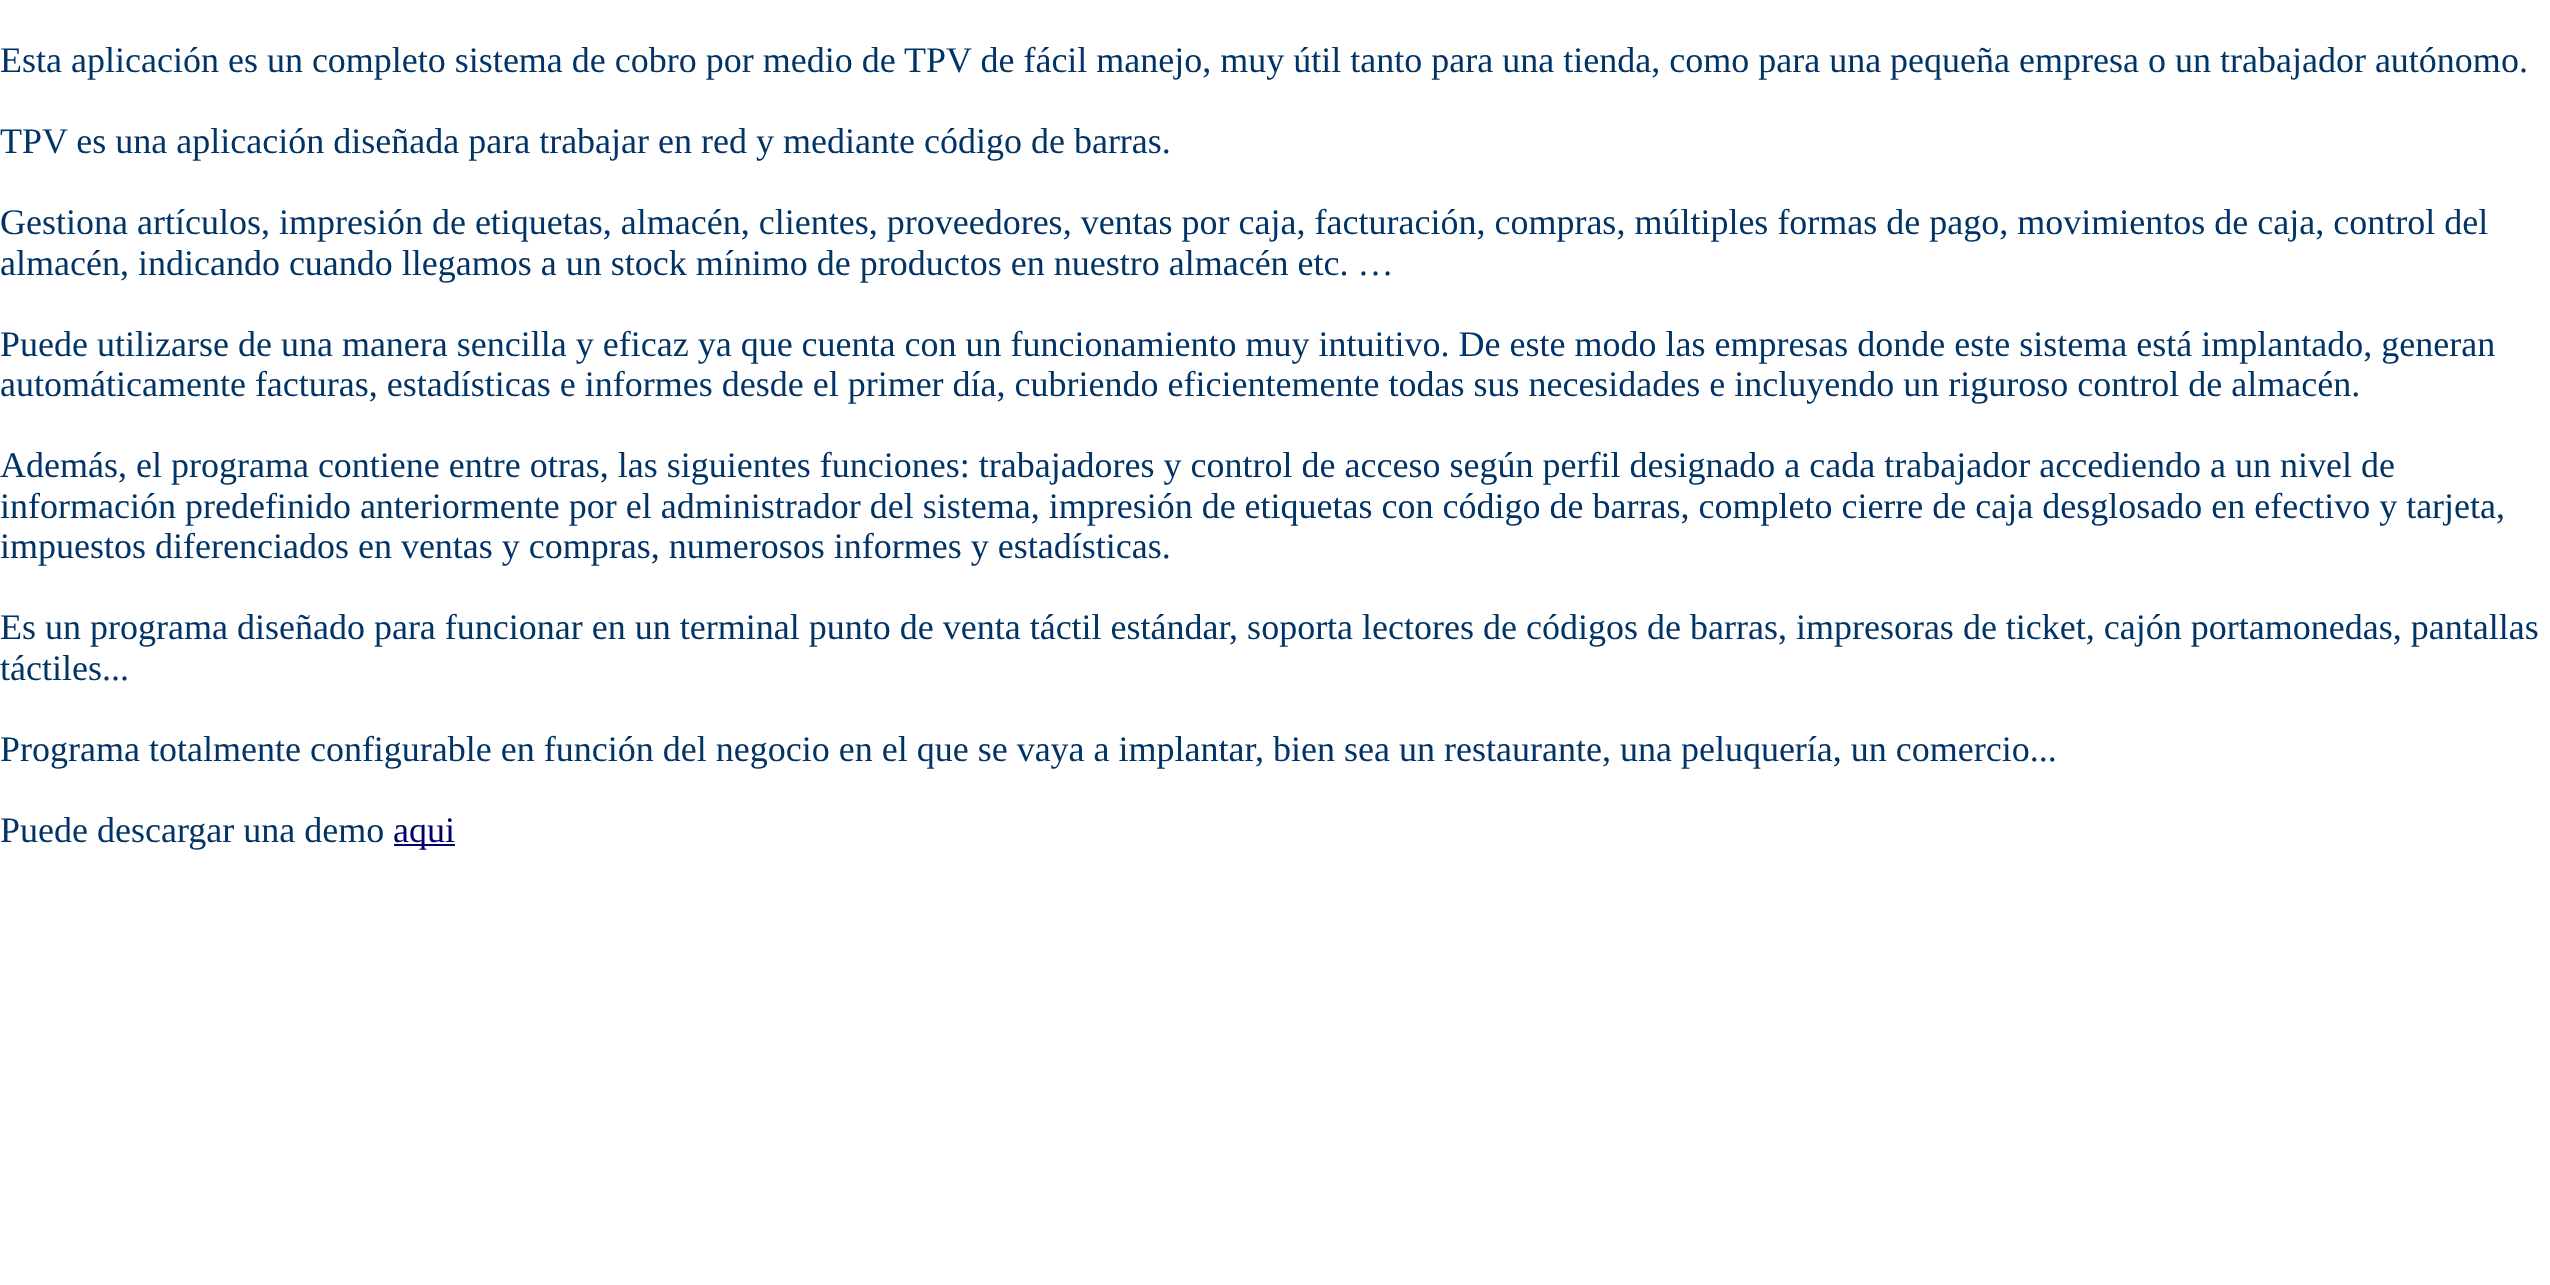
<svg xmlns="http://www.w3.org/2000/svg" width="2550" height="1285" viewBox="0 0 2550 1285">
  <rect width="100%" height="100%" fill="rgb(255,255,255)"/>
  <g font-family="Liberation Serif" font-size="36" fill="rgb(0,51,102)">
    <text x="0" y="72">Esta aplicación es un completo sistema de cobro por medio de TPV de fácil manejo, muy útil tanto para una tienda, como para una pequeña empresa o un trabajador autónomo.</text>
    <text x="0" y="153">TPV es una aplicación diseñada para trabajar en red y mediante código de barras.</text>
    <text>
      <tspan x="0" y="234">Gestiona artículos, impresión de etiquetas, almacén, clientes, proveedores, ventas por caja, facturación, compras, múltiples formas de pago, movimientos de caja, control del</tspan>
      <tspan x="0" y="275">almacén, indicando cuando llegamos a un stock mínimo de productos en nuestro almacén etc. …</tspan>
    </text>
    <text>
      <tspan x="0" y="356">Puede utilizarse de una manera sencilla y eficaz ya que cuenta con un funcionamiento muy intuitivo. De este modo las empresas donde este sistema está implantado, generan</tspan>
      <tspan x="0" y="396">automáticamente facturas, estadísticas e informes desde el primer día, cubriendo eficientemente todas sus necesidades e incluyendo un riguroso control de almacén.</tspan>
    </text>
    <text>
      <tspan x="0" y="477">Además, el programa contiene entre otras, las siguientes funciones: trabajadores y control de acceso según perfil designado a cada trabajador accediendo a un nivel de</tspan>
      <tspan x="0" y="518">información predefinido anteriormente por el administrador del sistema, impresión de etiquetas con código de barras, completo cierre de caja desglosado en efectivo y tarjeta,</tspan>
      <tspan x="0" y="558">impuestos diferenciados en ventas y compras, numerosos informes y estadísticas.</tspan>
    </text>
    <text>
      <tspan x="0" y="639">Es un programa diseñado para funcionar en un terminal punto de venta táctil estándar, soporta lectores de códigos de barras, impresoras de ticket, cajón portamonedas, pantallas</tspan>
      <tspan x="0" y="680">táctiles...</tspan>
    </text>
    <text x="0" y="761">Programa totalmente configurable en función del negocio en el que se vaya a implantar, bien sea un restaurante, una peluquería, un comercio...</text>
    <text x="0" y="842">Puede descargar una demo</text>
  </g>
  <rect x="394" y="844" width="61" height="2" fill="rgb(0,0,102)"/>
  <text x="393" y="842" font-family="Liberation Serif" font-size="36" fill="rgb(0,0,102)">aqui</text>
</svg>
